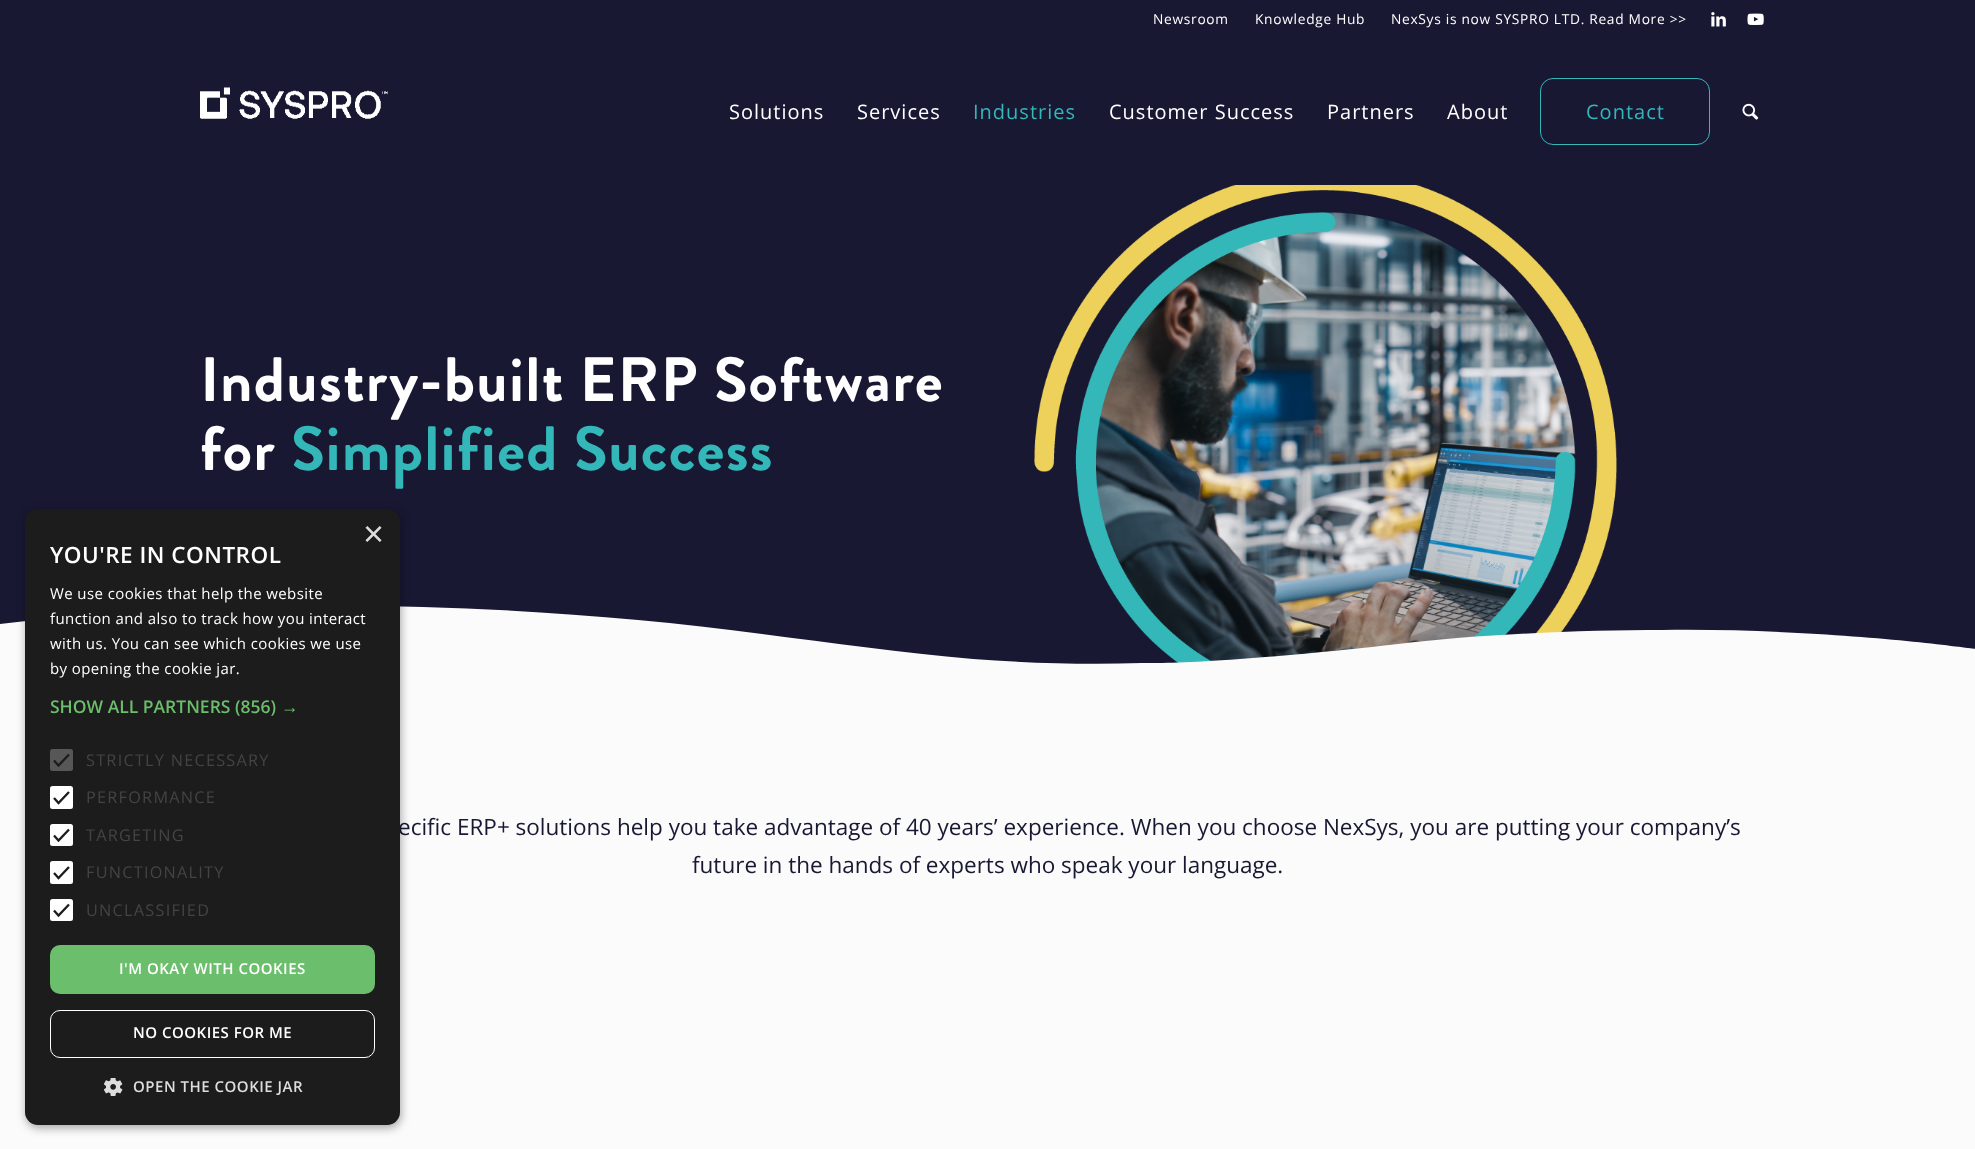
<svg xmlns="http://www.w3.org/2000/svg" width="1975" height="1149" viewBox="0 0 1975 1149">
  <rect width="100%" height="100%" fill="rgb(24,24,51)"/>
  <g font-family="Open Sans" font-size="13.75" letter-spacing="0.7" fill="rgb(255,255,255)">
    <text x="1153" y="24">Newsroom</text>
    <text x="1255" y="24">Knowledge Hub</text>
    <text x="1391" y="24">NexSys is now SYSPRO LTD. Read More &gt;&gt;</text>
  </g>
  <image x="1711" y="12" width="15" height="15" href="pic1.png"/>
  <image x="1747" y="13" width="17" height="12" href="pic2.png"/>
  <image x="200" y="87" width="188" height="32" href="pic3.png"/>
  <g font-family="Open Sans" font-size="20" letter-spacing="1" fill="rgb(255,255,255)">
    <text x="729" y="119">Solutions</text>
    <text x="857" y="119">Services</text>
  </g>
  <text x="973" y="119" font-family="Open Sans" font-size="20" letter-spacing="1" fill="rgb(51,183,185)">Industries</text>
  <g font-family="Open Sans" font-size="20" letter-spacing="1" fill="rgb(255,255,255)">
    <text x="1109" y="119">Customer Success</text>
    <text x="1327" y="119">Partners</text>
    <text x="1447" y="119">About</text>
  </g>
  <rect x="1540.5" y="78.5" width="169" height="66" rx="12.5" fill="none" stroke="rgb(51,183,185)"/>
  <text x="1586" y="119" font-family="Open Sans" font-size="20" letter-spacing="1" fill="rgb(51,183,185)">Contact</text>
  <image x="1742" y="103" width="17" height="17" href="pic4.png"/>
  <image x="1034" y="185" width="583" height="478" href="pic5.png"/>
  <g font-family="Brandon Grotesque" font-size="62.5" font-weight="bold" letter-spacing="1.25" fill="rgb(255,255,255)">
    <text>
      <tspan x="200" y="401">Industry-built ERP Software</tspan>
      <tspan x="200" y="470">for</tspan>
    </text>
  </g>
  <text x="291" y="470" font-family="Brandon Grotesque" font-size="62.5" font-weight="bold" letter-spacing="1.25" fill="rgb(51,183,185)">Simplified Success</text>
  <path d="M1142 663C1086 665 1028 663 973 659C861 649 750 630 638 620C508 608 377 603 247 607C164 609 81 614-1 624V668H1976V649C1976 649 1833 628 1663 630C1585 630 1479 634 1398 644C1356 649 1295 655 1240 659C1187 663 1162 663 1142 663Z" fill="rgb(251,251,251)"/>
  <rect x="0" y="668" width="1975" height="481" fill="rgb(251,251,251)"/>
  <g font-family="Open Sans" font-size="22.5" fill="rgb(24,24,51)">
    <text x="398" y="835">ecific ERP+ solutions help you take advantage of 40 years’ experience. When you choose NexSys, you are putting your company’s</text>
    <text x="692" y="873">future in the hands of experts who speak your language.</text>
  </g>
  <rect x="26" y="511" width="375" height="617" rx="13" fill="rgba(0,0,0,0.35)" filter="blur(5px)"/>
  <rect x="25" y="509" width="375" height="616" rx="13" fill="rgb(28,28,28)"/>
  <text x="363" y="546" font-family="Liberation Sans" font-size="36" fill="rgb(221,221,221)">×</text>
  <text x="50" y="563" font-family="Open Sans" font-size="22.5" font-weight="600" letter-spacing="0.5" fill="rgb(255,255,255)">YOU'RE IN CONTROL</text>
  <g font-family="Open Sans" font-size="15" letter-spacing="0.4" fill="rgb(255,255,255)">
    <text>
      <tspan x="50" y="599">We use cookies that help the website</tspan>
      <tspan x="50" y="624">function and also to track how you interact</tspan>
      <tspan x="50" y="649">with us. You can see which cookies we use</tspan>
      <tspan x="50" y="674">by opening the cookie jar.</tspan>
    </text>
  </g>
  <text x="50" y="713" font-family="Open Sans" font-size="17.5" font-weight="600" fill="rgb(107,190,107)">SHOW ALL PARTNERS (856)</text>
  <text x="281" y="713" font-family="Liberation Sans" font-size="17.5" font-weight="bold" fill="rgb(107,190,107)">→</text>
  <rect x="50" y="749" width="23" height="22" rx="2.5" fill="rgb(87,87,87)"/>
  <path d="M54 760.5L58.5 765.5L69 754.5" fill="none" stroke="rgb(28,28,28)" stroke-width="2.3"/>
  <text x="86" y="766" font-family="Open Sans" font-size="16.25" letter-spacing="1.25" fill="rgb(68,68,68)">STRICTLY NECESSARY</text>
  <rect x="51.5" y="787.5" width="20" height="20" rx="1" fill="rgb(255,255,255)" stroke="rgb(255,255,255)" stroke-width="3"/>
  <path d="M54 798L58.5 803L69 792" fill="none" stroke="rgb(28,28,28)" stroke-width="2.3"/>
  <text x="86" y="803" font-family="Open Sans" font-size="16.25" letter-spacing="1.25" fill="rgb(68,68,68)">PERFORMANCE</text>
  <rect x="51.5" y="825.5" width="20" height="19" rx="1" fill="rgb(255,255,255)" stroke="rgb(255,255,255)" stroke-width="3"/>
  <path d="M54 835.5L58.5 840.5L69 829.5" fill="none" stroke="rgb(28,28,28)" stroke-width="2.3"/>
  <text x="86" y="841" font-family="Open Sans" font-size="16.25" letter-spacing="1.25" fill="rgb(68,68,68)">TARGETING</text>
  <rect x="51.5" y="862.5" width="20" height="20" rx="1" fill="rgb(255,255,255)" stroke="rgb(255,255,255)" stroke-width="3"/>
  <path d="M54 873L58.5 878L69 867" fill="none" stroke="rgb(28,28,28)" stroke-width="2.3"/>
  <text x="86" y="878" font-family="Open Sans" font-size="16.25" letter-spacing="1.25" fill="rgb(68,68,68)">FUNCTIONALITY</text>
  <rect x="51.5" y="900.5" width="20" height="19" rx="1" fill="rgb(255,255,255)" stroke="rgb(255,255,255)" stroke-width="3"/>
  <path d="M54 910.5L58.5 915.5L69 904.5" fill="none" stroke="rgb(28,28,28)" stroke-width="2.3"/>
  <text x="86" y="916" font-family="Open Sans" font-size="16.25" letter-spacing="1.25" fill="rgb(68,68,68)">UNCLASSIFIED</text>
  <rect x="50" y="945" width="325" height="49" rx="10" fill="rgb(107,190,107)"/>
  <text x="119" y="974" font-family="Open Sans" font-size="15" font-weight="600" letter-spacing="0.5" fill="rgb(255,255,255)">I'M OKAY WITH COOKIES</text>
  <rect x="50.5" y="1010.5" width="324" height="47" rx="9.5" fill="none" stroke="rgb(255,255,255)"/>
  <text x="133" y="1038" font-family="Open Sans" font-size="15" font-weight="600" letter-spacing="0.5" fill="rgb(255,255,255)">NO COOKIES FOR ME</text>
  <image x="104" y="1078" width="19" height="18" href="pic6.png"/>
  <text x="133" y="1092" font-family="Open Sans" font-size="15" font-weight="600" letter-spacing="0.5" fill="rgb(221,221,221)">OPEN THE COOKIE JAR</text>
</svg>
